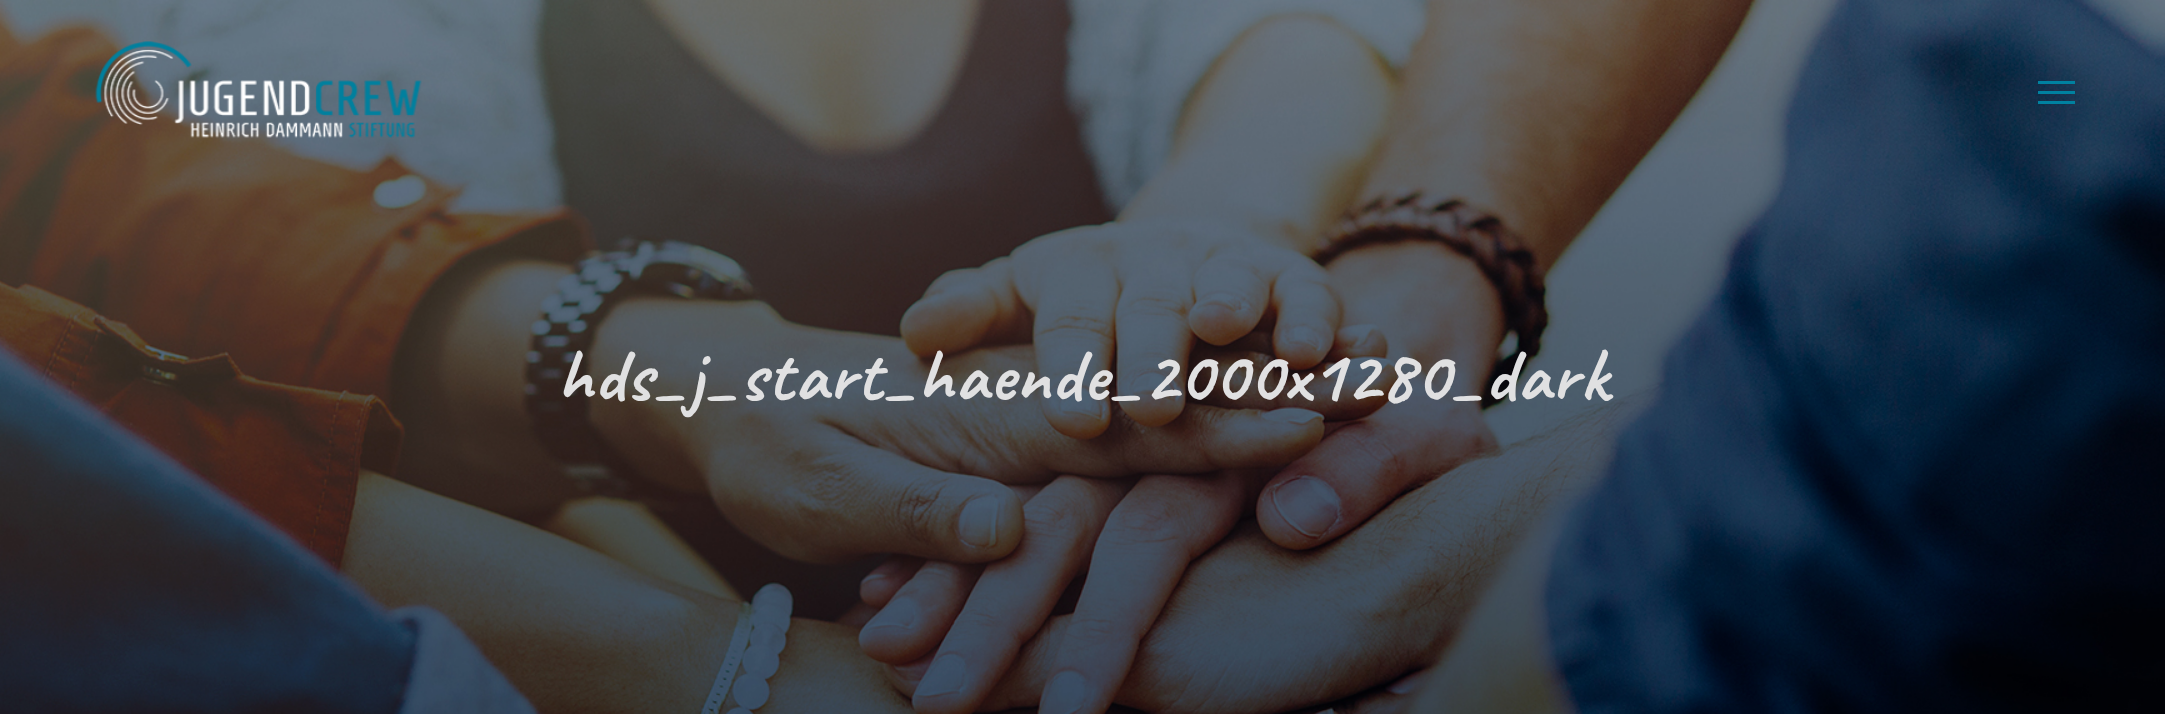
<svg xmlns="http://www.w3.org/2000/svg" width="2165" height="714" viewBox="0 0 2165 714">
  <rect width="100%" height="100%" fill="rgb(255,255,255)"/>
  <image x="0" y="0" width="2165" height="714" href="pic2.png"/>
  <image x="95" y="41" width="327" height="97" href="pic1.png"/>
  <rect x="2038" y="81" width="37" height="3" fill="rgb(0,129,160)"/>
  <rect x="2038" y="91" width="37" height="3" fill="rgb(0,129,160)"/>
  <rect x="2038" y="101" width="37" height="3" fill="rgb(0,129,160)"/>
  <text x="557" y="400" font-family="Caveat" font-size="75" font-weight="bold" letter-spacing="1.25" fill="rgb(224,224,225)">hds_j_start_haende_2000x1280_dark</text>
</svg>
